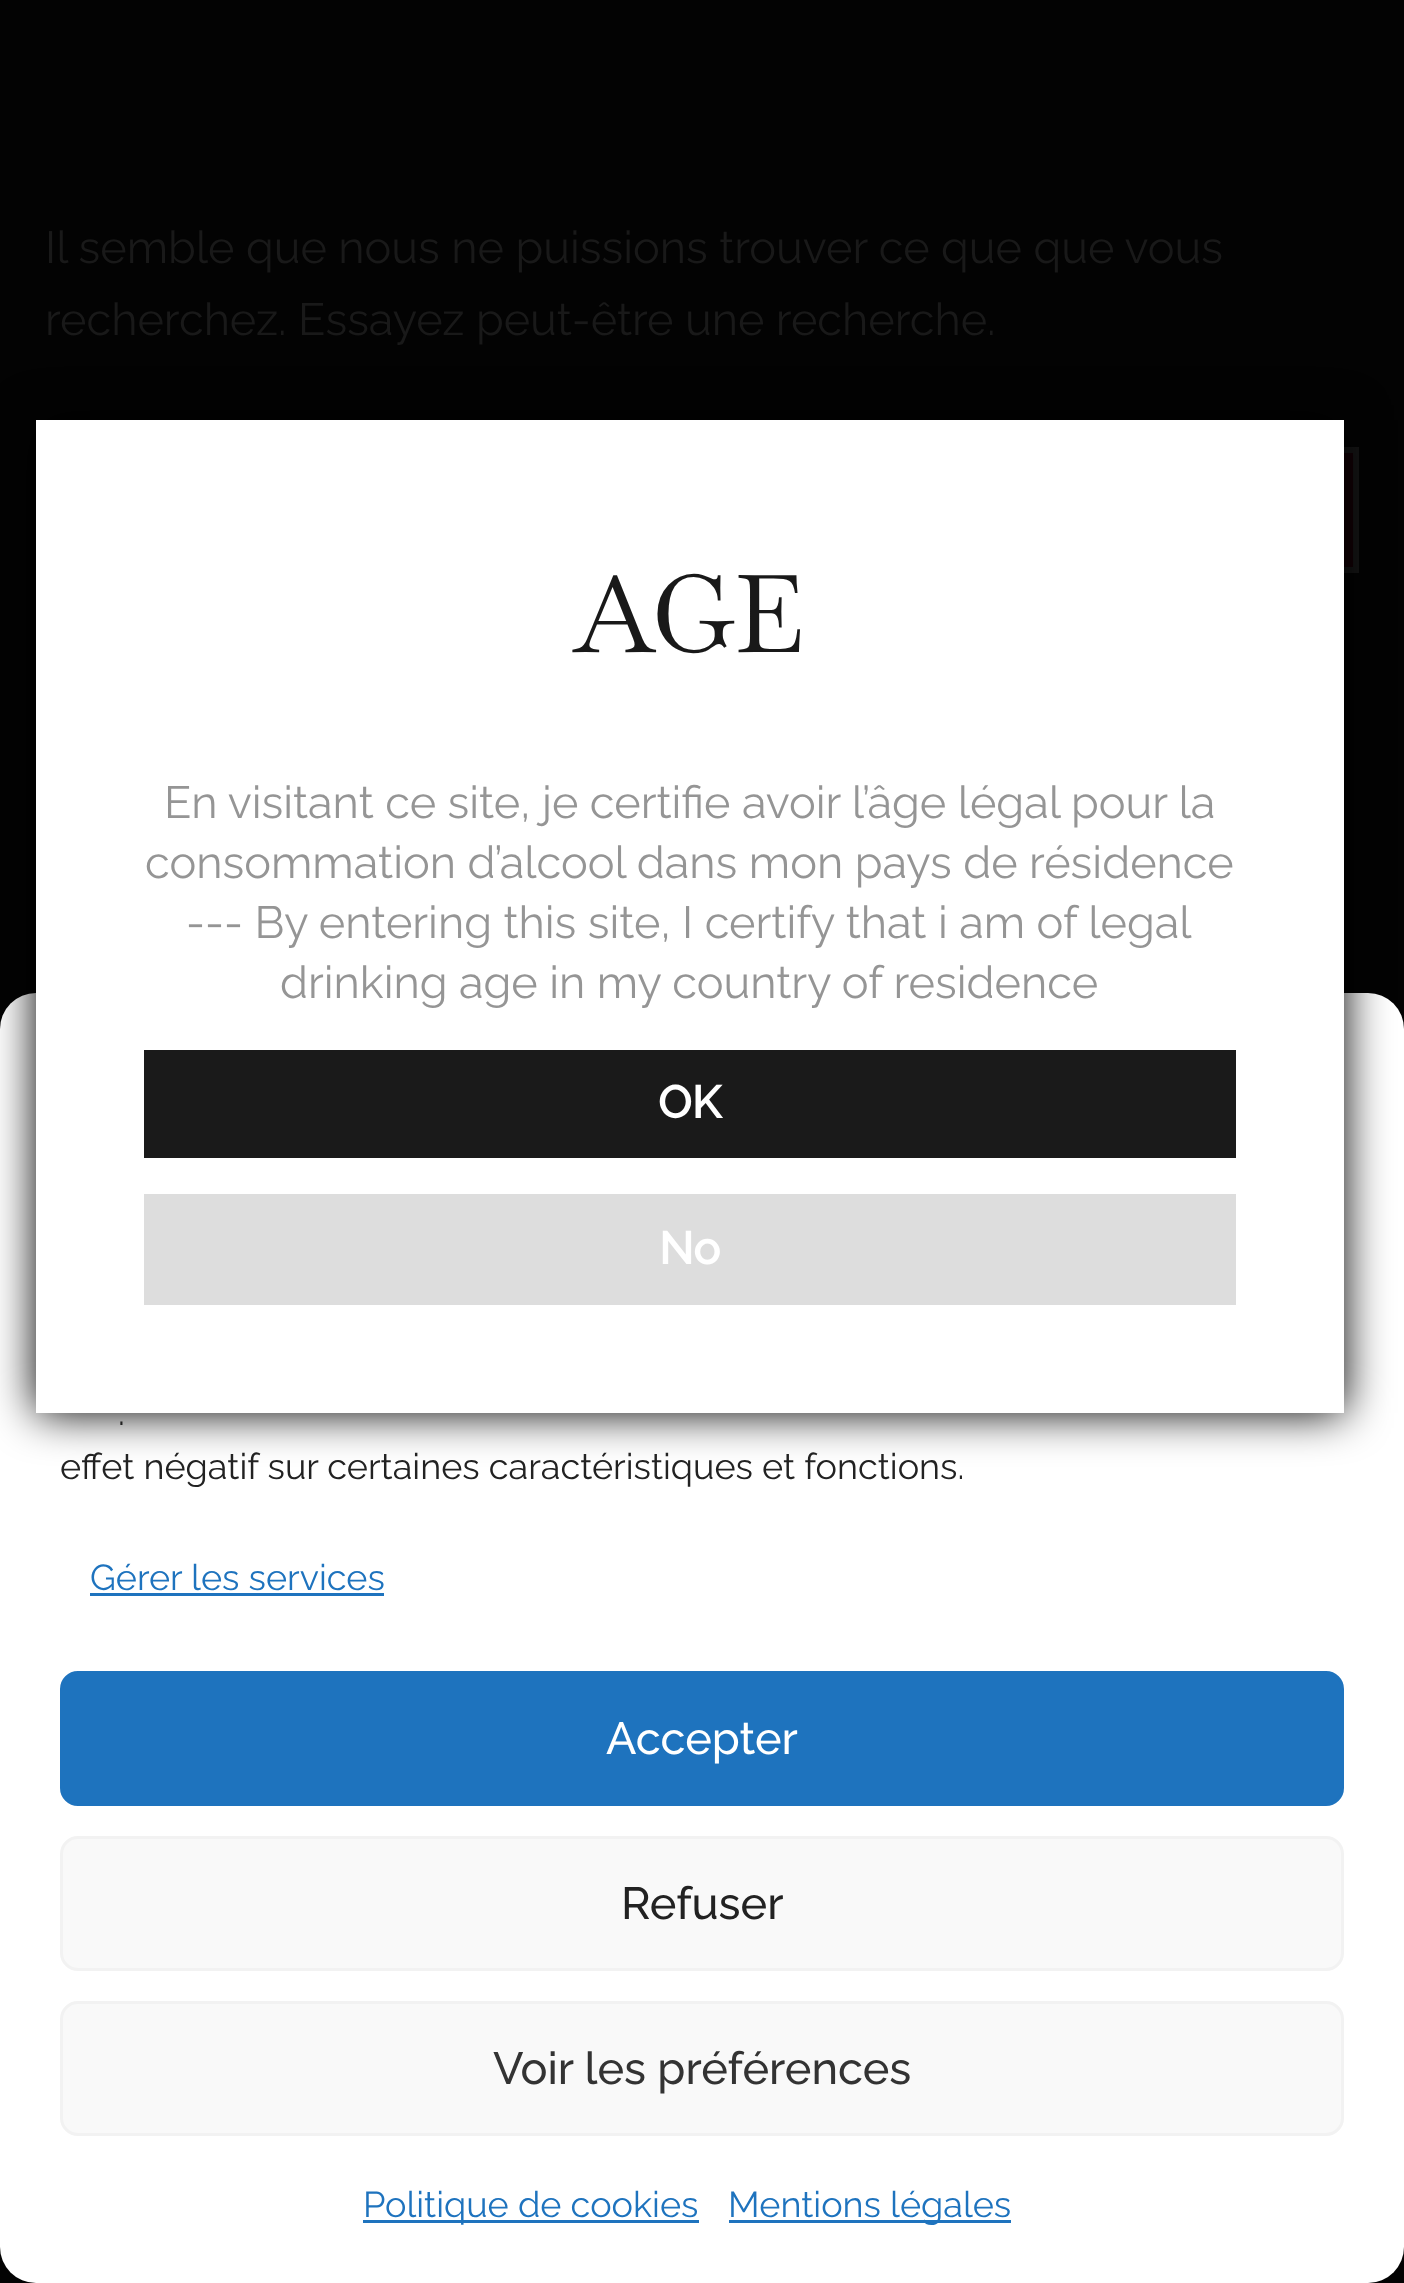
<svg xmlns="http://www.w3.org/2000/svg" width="1404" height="2283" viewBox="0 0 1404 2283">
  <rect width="100%" height="100%" fill="rgb(3,3,3)"/>
  <g font-family="Raleway" font-size="45" fill="rgb(25,25,25)">
    <text>
      <tspan x="45" y="263">Il semble que nous ne puissions trouver ce que que vous</tspan>
      <tspan x="45" y="335">recherchez. Essayez peut-être une recherche.</tspan>
    </text>
  </g>
  <rect x="1344" y="453" width="9" height="114" fill="rgb(19,1,5)"/>
  <rect x="1344" y="447" width="15" height="6" fill="rgb(22,22,22)"/>
  <rect x="1353" y="447" width="6" height="126" fill="rgb(22,22,22)"/>
  <rect x="1344" y="567" width="15" height="6" fill="rgb(22,22,22)"/>
  <rect x="0" y="993" width="1404" height="1290" rx="36" fill="rgb(255,255,255)"/>
  <rect x="36" y="420" width="1308" height="993" fill="rgb(0,0,0)" filter="blur(22.5px)"/>
  <rect x="36" y="420" width="1308" height="993" fill="rgb(255,255,255)"/>
  <text x="574" y="652" font-family="Baskervville" font-size="108" fill="rgb(25,25,25)">AGE</text>
  <g font-family="Raleway" font-size="45" fill="rgb(149,149,149)">
    <text x="164" y="818">En visitant ce site, je certifie avoir l’âge légal pour la</text>
    <text x="145" y="878">consommation d’alcool dans mon pays de résidence</text>
    <text x="186" y="938">--- By entering this site, I certify that i am of legal</text>
    <text x="280" y="998">drinking age in my country of residence</text>
  </g>
  <rect x="144" y="1050" width="1092" height="108" fill="rgb(26,26,26)"/>
  <text x="658" y="1118" font-family="Raleway" font-size="45" font-weight="bold" fill="rgb(255,255,255)">OK</text>
  <rect x="144" y="1194" width="1092" height="111" fill="rgb(221,221,221)"/>
  <text x="659" y="1264" font-family="Raleway" font-size="45" font-weight="bold" fill="rgb(255,255,255)">No</text>
  <g font-family="Raleway" font-size="36" fill="rgb(34,34,34)">
    <text x="118" y="1425">.</text>
    <text x="60" y="1479">effet négatif sur certaines caractéristiques et fonctions.</text>
  </g>
  <text x="90" y="1590" font-family="Raleway" font-size="36" fill="rgb(30,115,190)">Gérer les services</text>
  <rect x="90" y="1593" width="294" height="3" fill="rgb(30,115,190)"/>
  <rect x="61.5" y="1672.5" width="1281" height="132" rx="16.5" fill="rgb(30,115,190)" stroke="rgb(30,115,190)" stroke-width="3"/>
  <text x="606" y="1754" font-family="Raleway" font-size="45" font-weight="500" fill="rgb(255,255,255)">Accepter</text>
  <rect x="61.5" y="1837.5" width="1281" height="132" rx="16.5" fill="rgb(249,249,249)" stroke="rgb(242,242,242)" stroke-width="3"/>
  <text x="621" y="1919" font-family="Raleway" font-size="45" font-weight="500" fill="rgb(34,34,34)">Refuser</text>
  <rect x="61.5" y="2002.5" width="1281" height="132" rx="16.5" fill="rgb(249,249,249)" stroke="rgb(242,242,242)" stroke-width="3"/>
  <text x="493" y="2084" font-family="Raleway" font-size="45" font-weight="500" fill="rgb(51,51,51)">Voir les préférences</text>
  <rect x="363" y="2220" width="336" height="3" fill="rgb(30,115,190)"/>
  <text x="363" y="2217" font-family="Raleway" font-size="36" fill="rgb(30,115,190)">Politique de cookies</text>
  <rect x="729" y="2220" width="282" height="3" fill="rgb(30,115,190)"/>
  <text x="728" y="2217" font-family="Raleway" font-size="36" fill="rgb(30,115,190)">Mentions légales</text>
</svg>
